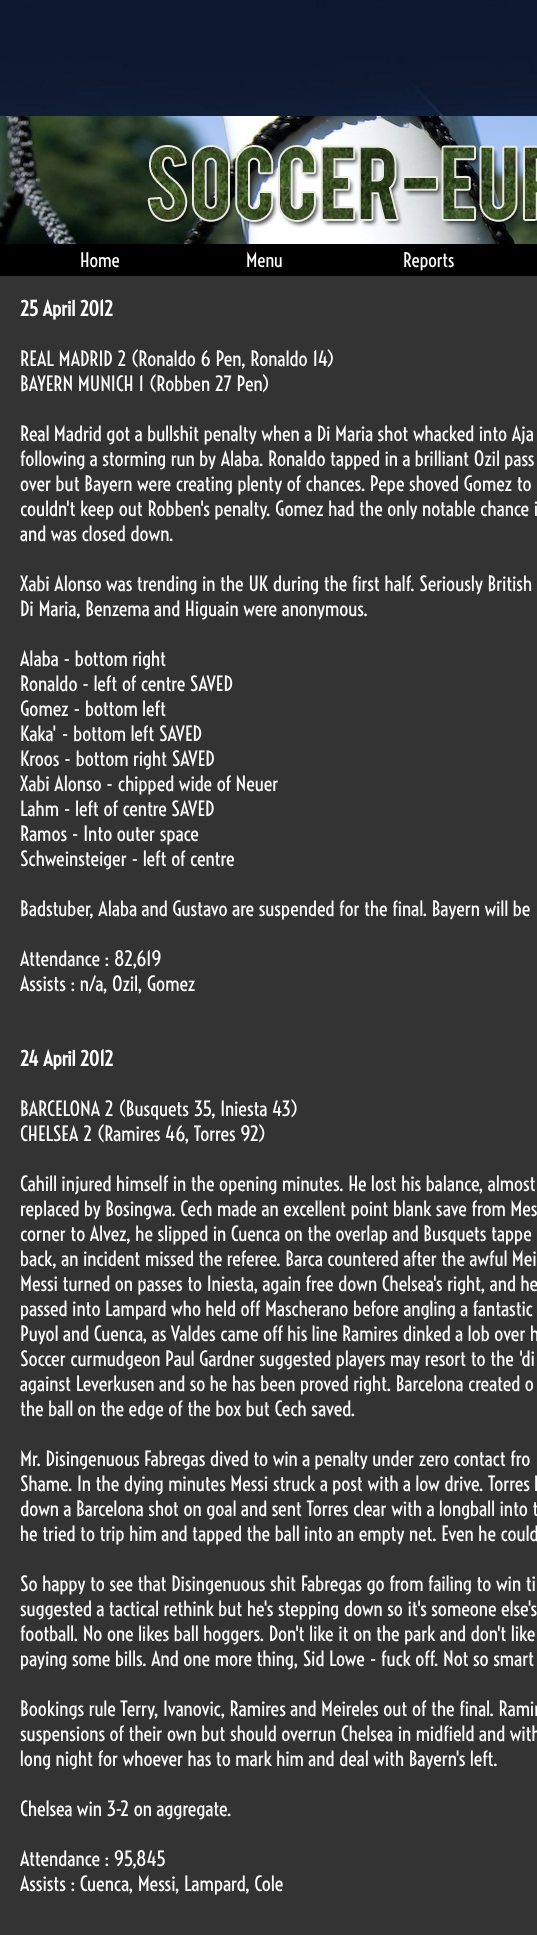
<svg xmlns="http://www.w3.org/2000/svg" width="537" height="1935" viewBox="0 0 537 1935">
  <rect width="100%" height="100%" fill="rgb(255,255,255)"/>
  <image x="0" y="0" width="537" height="116" href="pic1.png"/>
  <image x="0" y="116" width="537" height="128" href="pic2.png"/>
  <rect x="0" y="244" width="537" height="32" fill="rgb(0,0,0)"/>
  <g font-family="Voltaire" font-size="19" fill="rgb(255,255,255)">
    <text x="80" y="267">Home</text>
    <text x="246" y="267">Menu</text>
    <text x="403" y="267">Reports</text>
  </g>
  <rect x="0" y="276" width="537" height="1659" fill="rgb(51,51,51)"/>
  <text x="20" y="316" font-family="Voltaire" font-size="20" font-weight="bold" fill="rgb(255,255,255)">25 April 2012</text>
  <g font-family="Voltaire" font-size="20" fill="rgb(255,255,255)">
    <text>
      <tspan x="20" y="366">REAL MADRID 2 (Ronaldo 6 Pen, Ronaldo 14)</tspan>
      <tspan x="20" y="391">BAYERN MUNICH 1 (Robben 27 Pen)</tspan>
    </text>
    <text>
      <tspan x="20" y="441">Real Madrid got a bullshit penalty when a Di Maria shot whacked into Aja</tspan>
      <tspan x="20" y="466">following a storming run by Alaba. Ronaldo tapped in a brilliant Ozil pass</tspan>
      <tspan x="20" y="491">over but Bayern were creating plenty of chances. Pepe shoved Gomez to</tspan>
      <tspan x="20" y="516">couldn't keep out Robben's penalty. Gomez had the only notable chance i</tspan>
      <tspan x="20" y="541">and was closed down.</tspan>
    </text>
    <text>
      <tspan x="20" y="591">Xabi Alonso was trending in the UK during the first half. Seriously British</tspan>
      <tspan x="20" y="616">Di Maria, Benzema and Higuain were anonymous.</tspan>
    </text>
    <text>
      <tspan x="20" y="666">Alaba - bottom right</tspan>
      <tspan x="20" y="691">Ronaldo - left of centre SAVED</tspan>
      <tspan x="20" y="716">Gomez - bottom left</tspan>
      <tspan x="20" y="741">Kaka' - bottom left SAVED</tspan>
      <tspan x="20" y="766">Kroos - bottom right SAVED</tspan>
      <tspan x="20" y="791">Xabi Alonso - chipped wide of Neuer</tspan>
      <tspan x="20" y="816">Lahm - left of centre SAVED</tspan>
      <tspan x="20" y="841">Ramos - Into outer space</tspan>
      <tspan x="20" y="866">Schweinsteiger - left of centre</tspan>
    </text>
    <text x="20" y="916">Badstuber, Alaba and Gustavo are suspended for the final. Bayern will be</text>
    <text>
      <tspan x="20" y="966">Attendance : 82,619</tspan>
      <tspan x="20" y="991">Assists : n/a, Ozil, Gomez</tspan>
    </text>
  </g>
  <text x="20" y="1066" font-family="Voltaire" font-size="20" font-weight="bold" fill="rgb(255,255,255)">24 April 2012</text>
  <g font-family="Voltaire" font-size="20" fill="rgb(255,255,255)">
    <text>
      <tspan x="20" y="1116">BARCELONA 2 (Busquets 35, Iniesta 43)</tspan>
      <tspan x="20" y="1141">CHELSEA 2 (Ramires 46, Torres 92)</tspan>
    </text>
    <text>
      <tspan x="20" y="1191">Cahill injured himself in the opening minutes. He lost his balance, almost</tspan>
      <tspan x="20" y="1216">replaced by Bosingwa. Cech made an excellent point blank save from Mes</tspan>
      <tspan x="20" y="1241">corner to Alvez, he slipped in Cuenca on the overlap and Busquets tappe</tspan>
      <tspan x="20" y="1266">back, an incident missed the referee. Barca countered after the awful Mei</tspan>
      <tspan x="20" y="1291">Messi turned on passes to Iniesta, again free down Chelsea's right, and he</tspan>
      <tspan x="20" y="1316">passed into Lampard who held off Mascherano before angling a fantastic</tspan>
      <tspan x="20" y="1341">Puyol and Cuenca, as Valdes came off his line Ramires dinked a lob over h</tspan>
      <tspan x="20" y="1366">Soccer curmudgeon Paul Gardner suggested players may resort to the 'di</tspan>
      <tspan x="20" y="1391">against Leverkusen and so he has been proved right. Barcelona created o</tspan>
      <tspan x="20" y="1416">the ball on the edge of the box but Cech saved.</tspan>
    </text>
    <text>
      <tspan x="20" y="1466">Mr. Disingenuous Fabregas dived to win a penalty under zero contact fro</tspan>
      <tspan x="20" y="1491">Shame. In the dying minutes Messi struck a post with a low drive. Torres l</tspan>
      <tspan x="20" y="1516">down a Barcelona shot on goal and sent Torres clear with a longball into t</tspan>
      <tspan x="20" y="1541">he tried to trip him and tapped the ball into an empty net. Even he could</tspan>
    </text>
    <text>
      <tspan x="20" y="1591">So happy to see that Disingenuous shit Fabregas go from failing to win ti</tspan>
      <tspan x="20" y="1616">suggested a tactical rethink but he's stepping down so it's someone else's</tspan>
      <tspan x="20" y="1641">football. No one likes ball hoggers. Don't like it on the park and don't like</tspan>
      <tspan x="20" y="1666">paying some bills. And one more thing, Sid Lowe - fuck off. Not so smart</tspan>
    </text>
    <text>
      <tspan x="20" y="1716">Bookings rule Terry, Ivanovic, Ramires and Meireles out of the final. Ramir</tspan>
      <tspan x="20" y="1741">suspensions of their own but should overrun Chelsea in midfield and with</tspan>
      <tspan x="20" y="1766">long night for whoever has to mark him and deal with Bayern's left.</tspan>
    </text>
    <text x="20" y="1816">Chelsea win 3-2 on aggregate.</text>
    <text>
      <tspan x="20" y="1866">Attendance : 95,845</tspan>
      <tspan x="20" y="1891">Assists : Cuenca, Messi, Lampard, Cole</tspan>
    </text>
  </g>
</svg>
